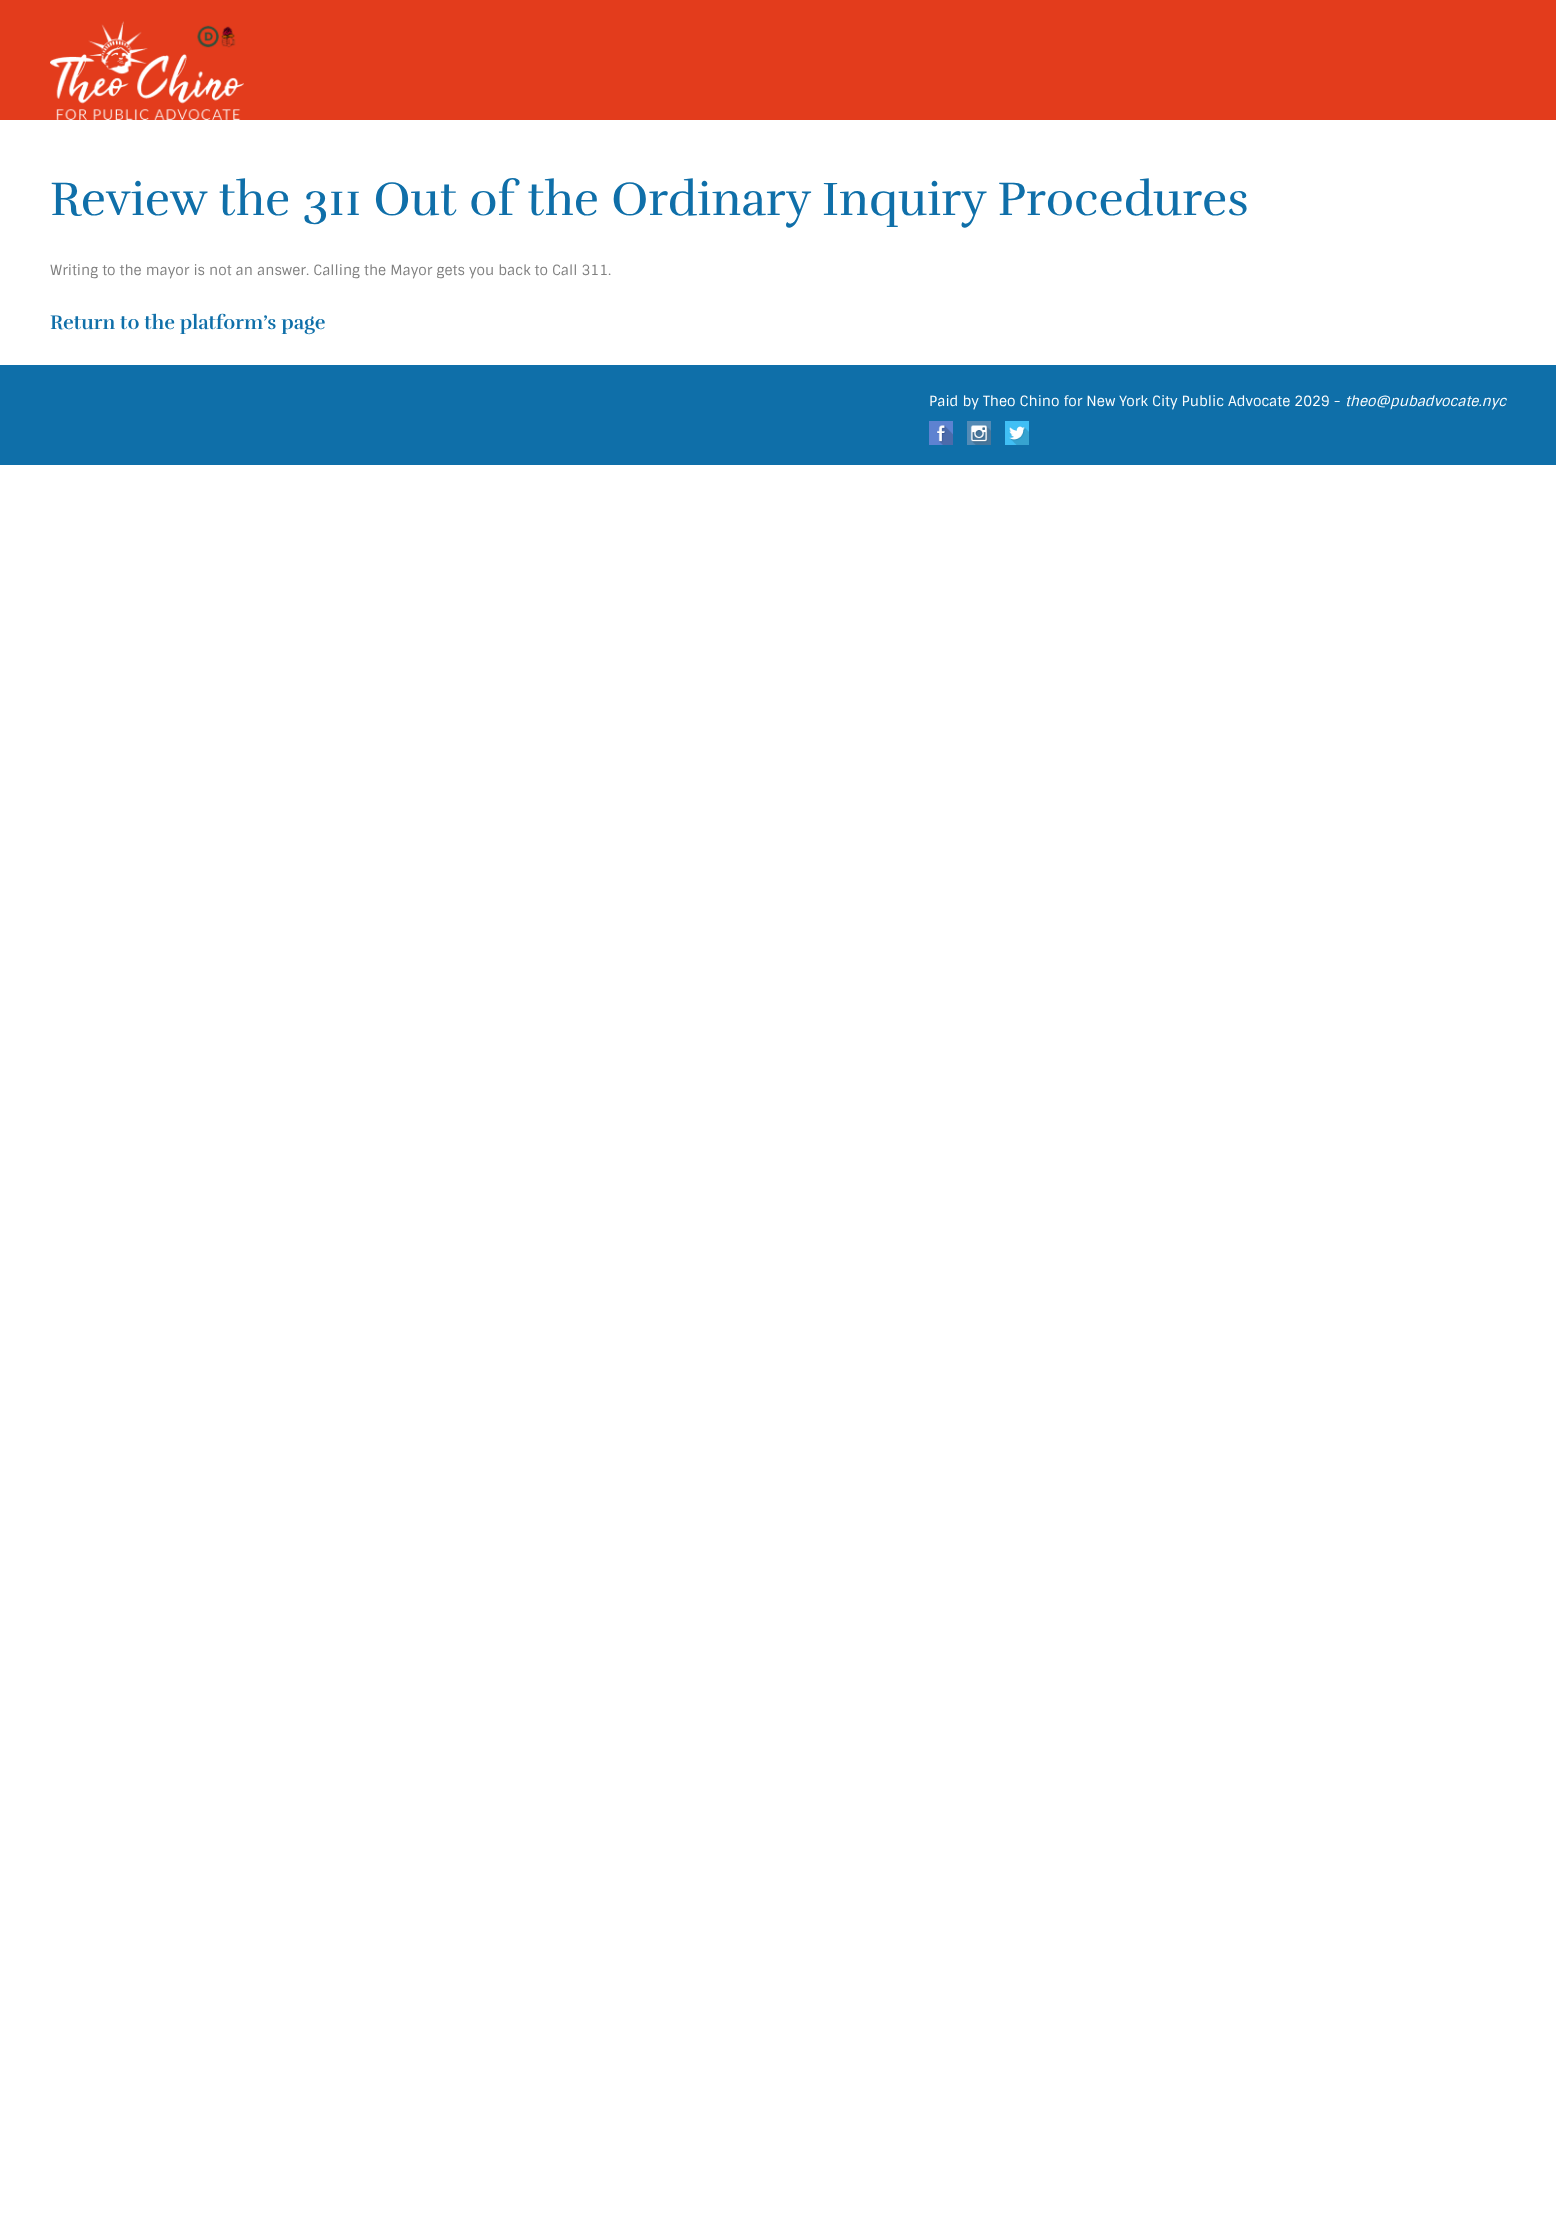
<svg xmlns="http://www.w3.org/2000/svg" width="1556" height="2236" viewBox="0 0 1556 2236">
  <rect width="100%" height="100%" fill="rgb(255,255,255)"/>
  <rect x="0" y="0" width="1556" height="120" fill="rgb(227,60,28)"/>
  <image x="50" y="21" width="194" height="99" href="pic1.png"/>
  <text x="50" y="215" font-family="Rufina" font-size="48" fill="rgb(15,111,169)">Review the 311 Out of the Ordinary Inquiry Procedures</text>
  <text x="50" y="275" font-family="Sintony" font-size="14" fill="rgb(128,128,128)">Writing to the mayor is not an answer. Calling the Mayor gets you back to Call 311.</text>
  <text x="50" y="329" font-family="Rufina" font-size="20" font-weight="bold" fill="rgb(15,111,169)">Return to the platform’s page</text>
  <rect x="0" y="365" width="1556" height="100" fill="rgb(15,111,169)"/>
  <text x="929" y="406" font-family="Sintony" font-size="14" fill="rgb(255,255,255)">Paid by Theo Chino for New York City Public Advocate 2029 -</text>
  <text x="1345" y="406" font-family="Sintony" font-size="14" font-style="italic" fill="rgb(255,255,255)">theo@pubadvocate.nyc</text>
  <image x="929" y="421" width="24" height="24" href="pic2.png"/>
  <image x="967" y="421" width="24" height="24" href="pic3.png"/>
  <image x="1005" y="421" width="24" height="24" href="pic4.png"/>
</svg>
